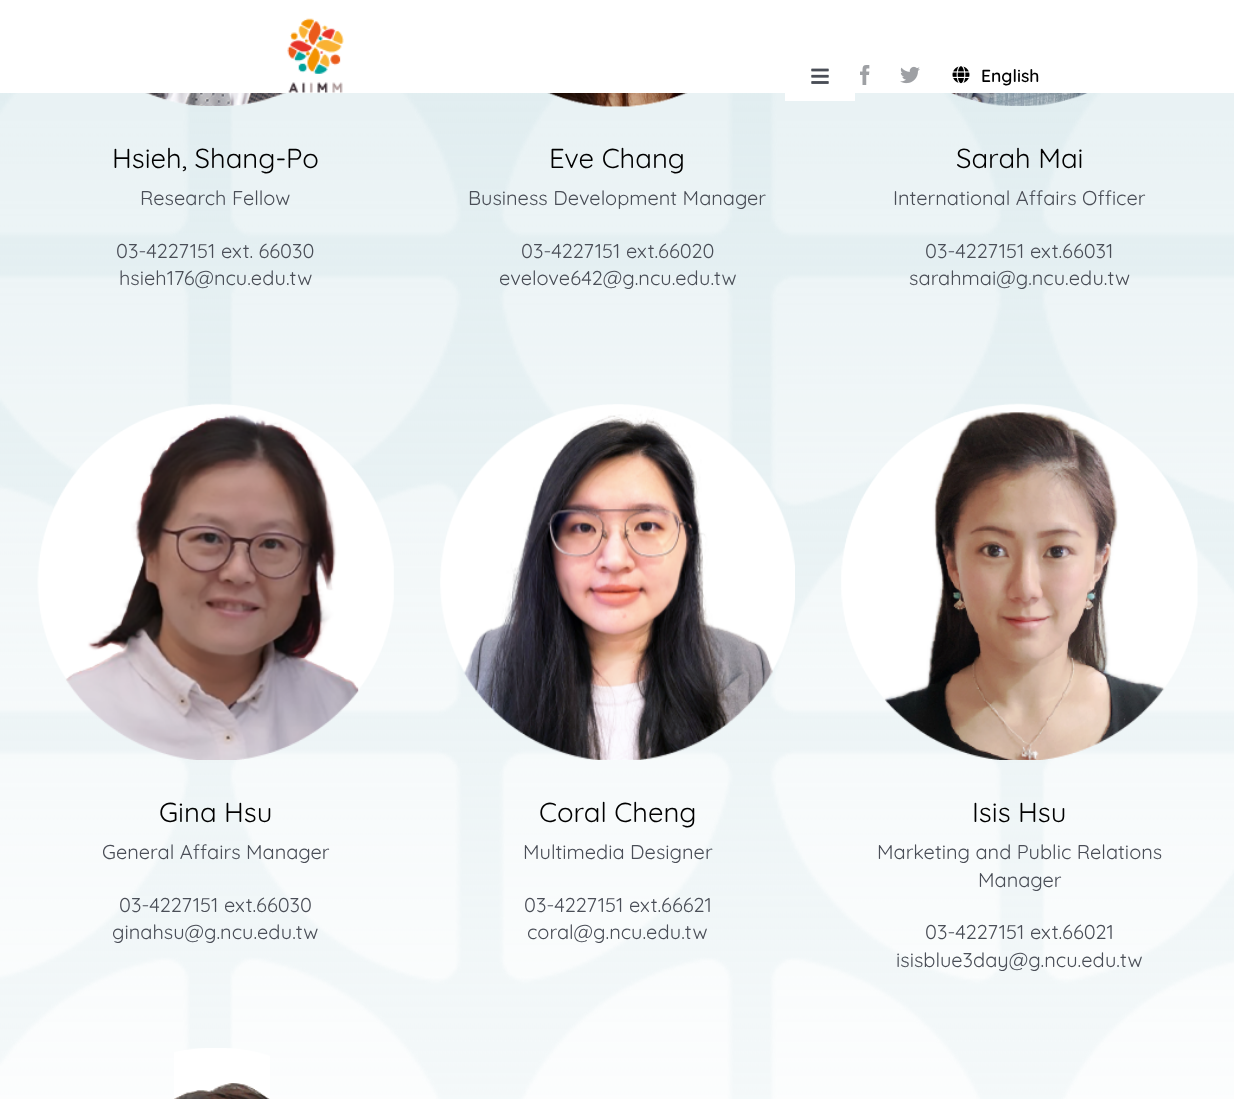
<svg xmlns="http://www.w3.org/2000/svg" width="1234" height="1099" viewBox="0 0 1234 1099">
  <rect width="100%" height="100%" fill="rgb(255,255,255)"/>
  <image x="287" y="18" width="57" height="75" href="pic1.png"/>
  <image x="0" y="93" width="1234" height="1006" href="pic6.png"/>
  <rect x="785" y="93" width="70" height="8" fill="rgb(255,255,255)"/>
  <image x="811" y="68" width="18" height="16" href="pic2.png"/>
  <image x="860" y="65" width="10" height="20" href="pic3.png"/>
  <image x="900" y="66" width="20" height="18" href="pic4.png"/>
  <image x="952" y="66" width="18" height="18" href="pic5.png"/>
  <text x="981" y="82" font-family="Quicksand" font-size="17.5" font-weight="600" fill="rgb(0,0,0)">English</text>
  <image x="145" y="93" width="141" height="13" href="pic7.png"/>
  <text x="112" y="168" font-family="Quicksand" font-size="27.5" fill="rgb(0,0,0)">Hsieh, Shang-Po</text>
  <g font-family="Quicksand" font-size="20" fill="rgb(74,78,87)">
    <text x="140" y="205">Research Fellow</text>
    <text x="116" y="258">03-4227151 ext. 66030</text>
    <text x="119" y="285">hsieh176@ncu.edu.tw</text>
  </g>
  <image x="547" y="93" width="142" height="14" href="pic8.png"/>
  <text x="549" y="168" font-family="Quicksand" font-size="27.5" fill="rgb(0,0,0)">Eve Chang</text>
  <g font-family="Quicksand" font-size="20" fill="rgb(74,78,87)">
    <text x="468" y="205">Business Development Manager</text>
    <text x="521" y="258">03-4227151 ext.66020</text>
    <text x="499" y="285">evelove642@g.ncu.edu.tw</text>
  </g>
  <image x="951" y="93" width="137" height="13" href="pic9.png"/>
  <text x="956" y="168" font-family="Quicksand" font-size="27.5" fill="rgb(0,0,0)">Sarah Mai</text>
  <g font-family="Quicksand" font-size="20" fill="rgb(74,78,87)">
    <text x="893" y="205">International Affairs Officer</text>
    <text x="925" y="258">03-4227151 ext.66031</text>
    <text x="909" y="285">sarahmai@g.ncu.edu.tw</text>
  </g>
  <image x="37" y="403" width="357" height="357" href="pic10.png"/>
  <text x="159" y="822" font-family="Quicksand" font-size="27.5" fill="rgb(0,0,0)">Gina Hsu</text>
  <g font-family="Quicksand" font-size="20" fill="rgb(74,78,87)">
    <text x="102" y="859">General Affairs Manager</text>
    <text x="119" y="912">03-4227151 ext.66030</text>
    <text x="112" y="939">ginahsu@g.ncu.edu.tw</text>
  </g>
  <image x="440" y="404" width="355" height="356" href="pic11.png"/>
  <text x="539" y="822" font-family="Quicksand" font-size="27.5" fill="rgb(0,0,0)">Coral Cheng</text>
  <g font-family="Quicksand" font-size="20" fill="rgb(74,78,87)">
    <text x="523" y="859">Multimedia Designer</text>
    <text x="524" y="912">03-4227151 ext.66621</text>
    <text x="527" y="939">coral@g.ncu.edu.tw</text>
  </g>
  <image x="841" y="403" width="357" height="357" href="pic12.png"/>
  <text x="972" y="822" font-family="Quicksand" font-size="27.5" fill="rgb(0,0,0)">Isis Hsu</text>
  <g font-family="Quicksand" font-size="20" fill="rgb(74,78,87)">
    <text x="877" y="859">Marketing and Public Relations</text>
    <text x="978" y="887">Manager</text>
    <text x="925" y="939">03-4227151 ext.66021</text>
    <text x="896" y="967">isisblue3day@g.ncu.edu.tw</text>
  </g>
  <image x="174" y="1048" width="96" height="51" href="pic13.png"/>
</svg>
